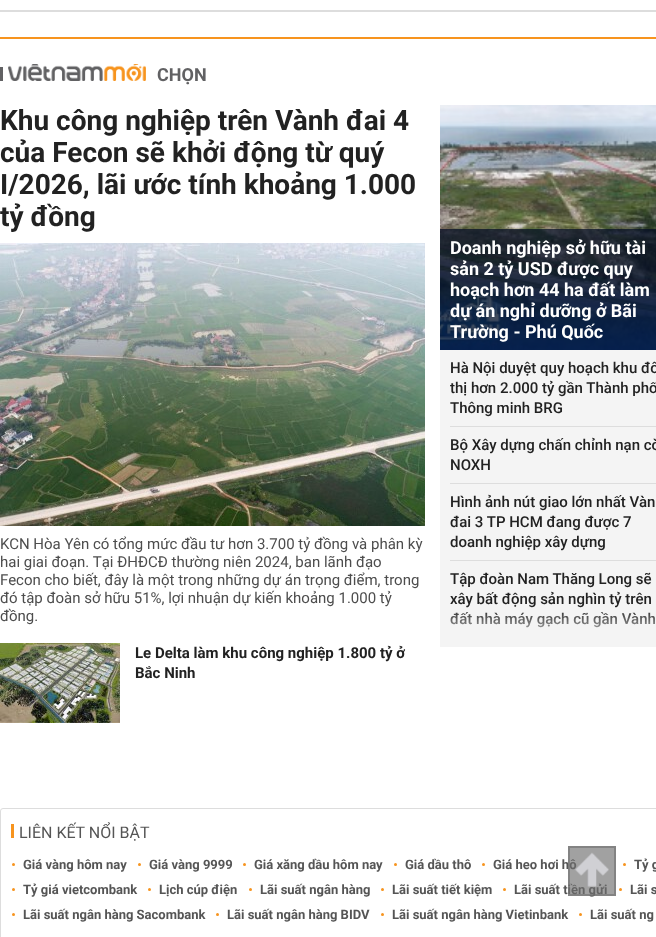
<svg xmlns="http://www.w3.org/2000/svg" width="656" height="937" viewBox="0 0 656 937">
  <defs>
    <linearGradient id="g1" gradientUnits="userSpaceOnUse" x1="563" y1="647" x2="563" y2="607"><stop offset="0" stop-color="rgb(244,244,244)"/><stop offset="1" stop-color="rgb(244,244,244)" stop-opacity="0"/></linearGradient>
  </defs>
  <rect width="100%" height="100%" fill="rgb(255,255,255)"/>
  <rect x="0" y="10" width="656" height="2" fill="rgb(221,221,221)"/>
  <rect x="0" y="37" width="656" height="2" fill="rgb(247,148,30)"/>
  <rect x="0" y="67" width="3" height="14" fill="rgb(97,97,99)"/>
  <image x="8" y="64" width="138" height="17" href="pic1.png"/>
  <text x="157" y="81" font-family="Roboto" font-size="18" font-weight="bold" fill="rgb(97,97,99)">CHỌN</text>
  <g font-family="Roboto" font-size="28" font-weight="bold" fill="rgb(34,34,34)">
    <text>
      <tspan x="0" y="130">Khu công nghiệp trên Vành đai 4</tspan>
      <tspan x="0" y="162">của Fecon sẽ khởi động từ quý</tspan>
      <tspan x="0" y="194">I/2026, lãi ước tính khoảng 1.000</tspan>
      <tspan x="0" y="226">tỷ đồng</tspan>
    </text>
  </g>
  <image x="0" y="243" width="425" height="283" href="pic2.png"/>
  <g font-family="Roboto" font-size="15" fill="rgb(77,77,77)">
    <text>
      <tspan x="0" y="549">KCN Hòa Yên có tổng mức đầu tư hơn 3.700 tỷ đồng và phân kỳ</tspan>
      <tspan x="0" y="567">hai giai đoạn. Tại ĐHĐCĐ thường niên 2024, ban lãnh đạo</tspan>
      <tspan x="0" y="585">Fecon cho biết, đây là một trong những dự án trọng điểm, trong</tspan>
      <tspan x="0" y="603">đó tập đoàn sở hữu 51%, lợi nhuận dự kiến khoảng 1.000 tỷ</tspan>
      <tspan x="0" y="621">đồng.</tspan>
    </text>
  </g>
  <image x="0" y="643" width="120" height="80" href="pic3.png"/>
  <g font-family="Roboto" font-size="15" font-weight="bold" fill="rgb(34,34,34)">
    <text>
      <tspan x="135" y="658">Le Delta làm khu công nghiệp 1.800 tỷ ở</tspan>
      <tspan x="135" y="678">Bắc Ninh</tspan>
    </text>
  </g>
  <rect x="440" y="350" width="216" height="297" fill="rgb(244,244,244)"/>
  <image x="440" y="105" width="216" height="245" href="pic4.png"/>
  <rect x="440" y="229" width="216" height="121" fill="rgba(5,15,37,0.75)"/>
  <g font-family="Roboto" font-size="18" font-weight="bold" fill="rgb(255,255,255)">
    <text>
      <tspan x="450" y="254">Doanh nghiệp sở hữu tài</tspan>
      <tspan x="450" y="275">sản 2 tỷ USD được quy</tspan>
      <tspan x="450" y="296">hoạch hơn 44 ha đất làm</tspan>
      <tspan x="450" y="317">dự án nghỉ dưỡng ở Bãi</tspan>
      <tspan x="450" y="338">Trường - Phú Quốc</tspan>
    </text>
  </g>
  <rect x="450" y="426" width="206" height="1" fill="rgb(221,221,221)"/>
  <g font-family="Roboto" font-size="15" font-weight="500" fill="rgb(34,34,34)">
    <text>
      <tspan x="450" y="373">Hà Nội duyệt quy hoạch khu đô</tspan>
      <tspan x="450" y="393">thị hơn 2.000 tỷ gần Thành phố</tspan>
      <tspan x="450" y="413">Thông minh BRG</tspan>
    </text>
  </g>
  <rect x="450" y="483" width="206" height="1" fill="rgb(221,221,221)"/>
  <g font-family="Roboto" font-size="15" font-weight="500" fill="rgb(34,34,34)">
    <text>
      <tspan x="450" y="450">Bộ Xây dựng chấn chỉnh nạn cò</tspan>
      <tspan x="450" y="470">NOXH</tspan>
    </text>
  </g>
  <rect x="450" y="560" width="206" height="1" fill="rgb(221,221,221)"/>
  <g font-family="Roboto" font-size="15" font-weight="500" fill="rgb(34,34,34)">
    <text>
      <tspan x="450" y="507">Hình ảnh nút giao lớn nhất Vàn</tspan>
      <tspan x="450" y="527">đai 3 TP HCM đang được 7</tspan>
      <tspan x="450" y="547">doanh nghiệp xây dựng</tspan>
    </text>
    <text>
      <tspan x="450" y="584">Tập đoàn Nam Thăng Long sẽ</tspan>
      <tspan x="450" y="604">xây bất động sản nghìn tỷ trên</tspan>
      <tspan x="450" y="624">đất nhà máy gạch cũ gần Vành</tspan>
    </text>
  </g>
  <rect x="450" y="612" width="205" height="16" fill="url(#g1)"/>
  <rect x="0.5" y="808.5" width="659" height="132" rx="2.5" fill="none" stroke="rgb(221,221,221)"/>
  <rect x="11" y="824" width="3" height="14" fill="rgb(247,148,30)"/>
  <text x="19" y="838" font-family="Roboto" font-size="16" fill="rgb(85,85,85)">LIÊN KẾT NỔI BẬT</text>
  <circle cx="13.5" cy="864.5" r="1.5" fill="rgb(247,148,30)"/>
  <text x="23" y="869" font-family="Roboto" font-size="13" font-weight="bold" fill="rgb(85,85,85)">Giá vàng hôm nay</text>
  <circle cx="139.5" cy="864.5" r="1.5" fill="rgb(247,148,30)"/>
  <text x="149" y="869" font-family="Roboto" font-size="13" font-weight="bold" fill="rgb(85,85,85)">Giá vàng 9999</text>
  <circle cx="244.5" cy="864.5" r="1.5" fill="rgb(247,148,30)"/>
  <text x="254" y="869" font-family="Roboto" font-size="13" font-weight="bold" fill="rgb(85,85,85)">Giá xăng dầu hôm nay</text>
  <circle cx="395.5" cy="864.5" r="1.5" fill="rgb(247,148,30)"/>
  <text x="405" y="869" font-family="Roboto" font-size="13" font-weight="bold" fill="rgb(85,85,85)">Giá dầu thô</text>
  <circle cx="483.5" cy="864.5" r="1.5" fill="rgb(247,148,30)"/>
  <text x="493" y="869" font-family="Roboto" font-size="13" font-weight="bold" fill="rgb(85,85,85)">Giá heo hơi hô</text>
  <circle cx="624.5" cy="864.5" r="1.5" fill="rgb(247,148,30)"/>
  <text x="634" y="869" font-family="Roboto" font-size="13" font-weight="bold" fill="rgb(85,85,85)">Tỷ g</text>
  <circle cx="13.5" cy="889.5" r="1.5" fill="rgb(247,148,30)"/>
  <text x="23" y="894" font-family="Roboto" font-size="13" font-weight="bold" fill="rgb(85,85,85)">Tỷ giá vietcombank</text>
  <circle cx="149.5" cy="889.5" r="1.5" fill="rgb(247,148,30)"/>
  <text x="159" y="894" font-family="Roboto" font-size="13" font-weight="bold" fill="rgb(85,85,85)">Lịch cúp điện</text>
  <circle cx="250.5" cy="889.5" r="1.5" fill="rgb(247,148,30)"/>
  <text x="260" y="894" font-family="Roboto" font-size="13" font-weight="bold" fill="rgb(85,85,85)">Lãi suất ngân hàng</text>
  <circle cx="382.5" cy="889.5" r="1.5" fill="rgb(247,148,30)"/>
  <text x="392" y="894" font-family="Roboto" font-size="13" font-weight="bold" fill="rgb(85,85,85)">Lãi suất tiết kiệm</text>
  <circle cx="504.5" cy="889.5" r="1.5" fill="rgb(247,148,30)"/>
  <text x="514" y="894" font-family="Roboto" font-size="13" font-weight="bold" fill="rgb(85,85,85)">Lãi suất tiền gửi</text>
  <circle cx="620.5" cy="889.5" r="1.5" fill="rgb(247,148,30)"/>
  <text x="630" y="894" font-family="Roboto" font-size="13" font-weight="bold" fill="rgb(85,85,85)">Lãi s</text>
  <circle cx="13.5" cy="914.5" r="1.5" fill="rgb(247,148,30)"/>
  <text x="23" y="919" font-family="Roboto" font-size="13" font-weight="bold" fill="rgb(85,85,85)">Lãi suất ngân hàng Sacombank</text>
  <circle cx="217.5" cy="914.5" r="1.5" fill="rgb(247,148,30)"/>
  <text x="227" y="919" font-family="Roboto" font-size="13" font-weight="bold" fill="rgb(85,85,85)">Lãi suất ngân hàng BIDV</text>
  <circle cx="382.5" cy="914.5" r="1.5" fill="rgb(247,148,30)"/>
  <text x="392" y="919" font-family="Roboto" font-size="13" font-weight="bold" fill="rgb(85,85,85)">Lãi suất ngân hàng Vietinbank</text>
  <circle cx="580.5" cy="914.5" r="1.5" fill="rgb(247,148,30)"/>
  <text x="590" y="919" font-family="Roboto" font-size="13" font-weight="bold" fill="rgb(85,85,85)">Lãi suất ng</text>
  <rect x="568" y="846" width="48" height="50" fill="rgba(110,110,110,0.65)"/>
  <rect x="569" y="847" width="46" height="48" fill="none" stroke="rgba(110,110,110,0.59)" stroke-width="2"/>
  <image x="575" y="852" width="34" height="35" href="pic5.png"/>
</svg>
